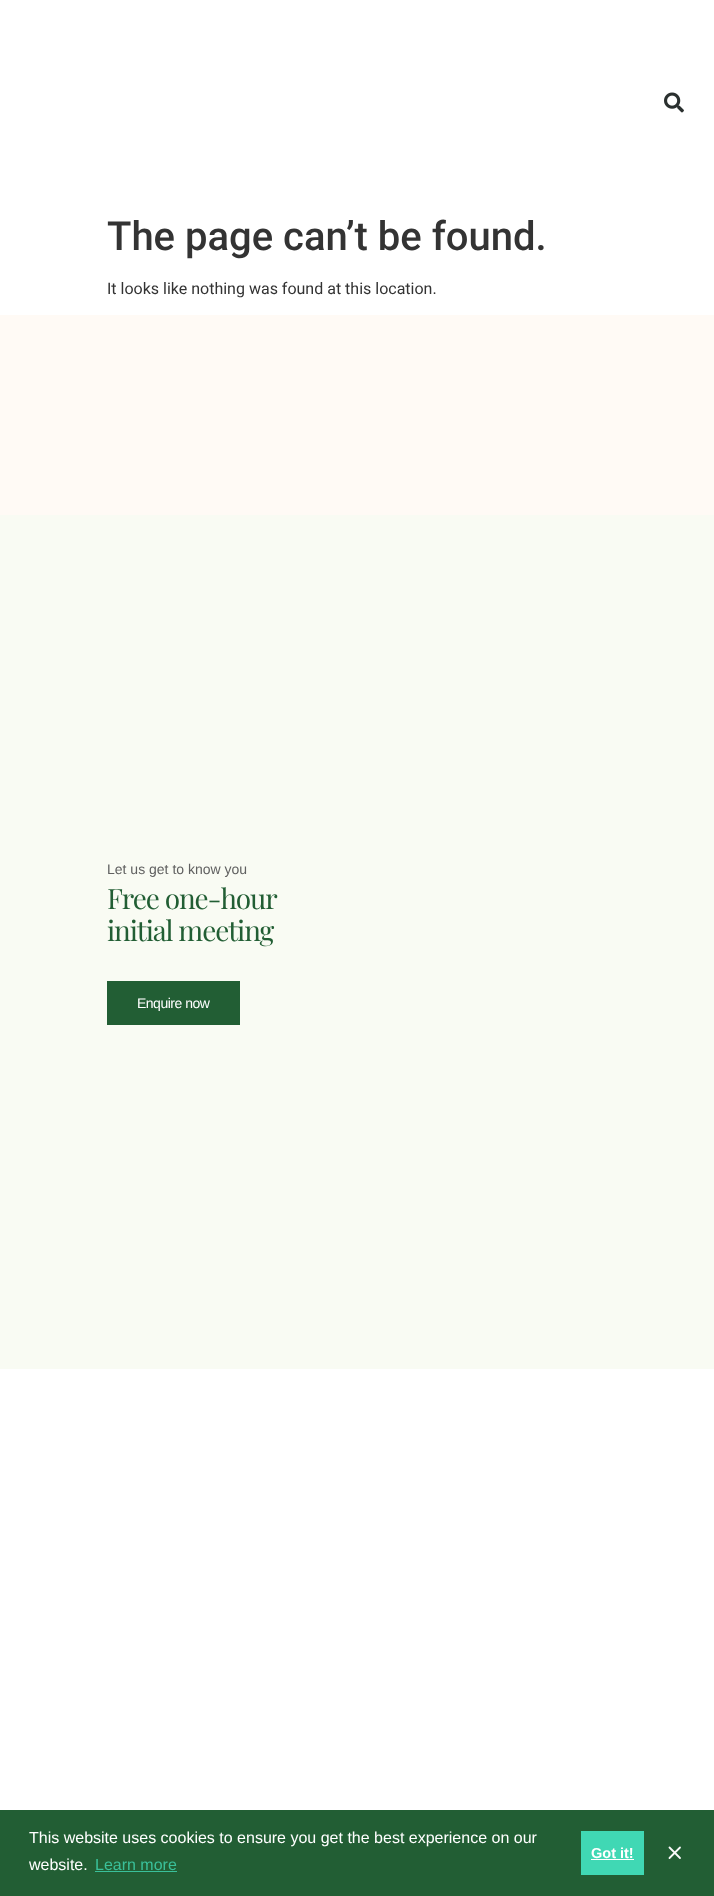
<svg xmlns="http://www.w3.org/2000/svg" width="714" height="1896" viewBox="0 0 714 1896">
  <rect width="100%" height="100%" fill="rgb(255,255,255)"/>
  <image x="664" y="92" width="20" height="21" href="pic1.png"/>
  <text x="107" y="250" font-family="Roboto" font-size="40" font-weight="500" fill="rgb(51,51,51)">The page can’t be found.</text>
  <text x="107" y="294" font-family="Roboto" font-size="16" fill="rgb(51,51,51)">It looks like nothing was found at this location.</text>
  <rect x="0" y="315" width="714" height="200" fill="rgb(255,250,245)"/>
  <rect x="0" y="515" width="714" height="854" fill="rgb(249,251,243)"/>
  <text x="107" y="874" font-family="Liberation Sans" font-size="14" fill="rgb(96,96,96)">Let us get to know you</text>
  <g font-family="Playfair Display" font-size="28" letter-spacing="-1.1" fill="rgb(34,94,52)">
    <text>
      <tspan x="107" y="909">Free one-hour</tspan>
      <tspan x="107" y="941">initial meeting</tspan>
    </text>
  </g>
  <rect x="107" y="981" width="133" height="44" fill="rgb(34,94,52)"/>
  <text x="137" y="1008" font-family="Liberation Sans" font-size="14" letter-spacing="-0.5" fill="rgb(255,255,255)">Enquire now</text>
  <rect x="0" y="1810" width="714" height="86" fill="rgb(34,94,52)"/>
  <g font-family="Liberation Sans" font-size="16" fill="rgb(255,255,255)">
    <text>
      <tspan x="29" y="1843">This website uses cookies to ensure you get the best experience on our</tspan>
      <tspan x="29" y="1870">website.</tspan>
    </text>
  </g>
  <text x="95" y="1870" font-family="Liberation Sans" font-size="16" fill="rgb(58,192,154)">Learn more</text>
  <rect x="95" y="1871" width="82" height="1" fill="rgb(58,192,154)"/>
  <rect x="581" y="1831" width="63" height="44" fill="rgb(64,216,180)"/>
  <text x="591" y="1858" font-family="Liberation Sans" font-size="14.5" font-weight="bold" fill="rgb(255,255,255)">Got it!</text>
  <rect x="591" y="1859" width="43" height="1" fill="rgb(255,255,255)"/>
  <path d="M669.5 1858L680 1847.5M680 1858L669.5 1847.5" fill="none" stroke="rgb(251,251,251)" stroke-width="1.8" stroke-linecap="round" stroke-linejoin="round"/>
</svg>
